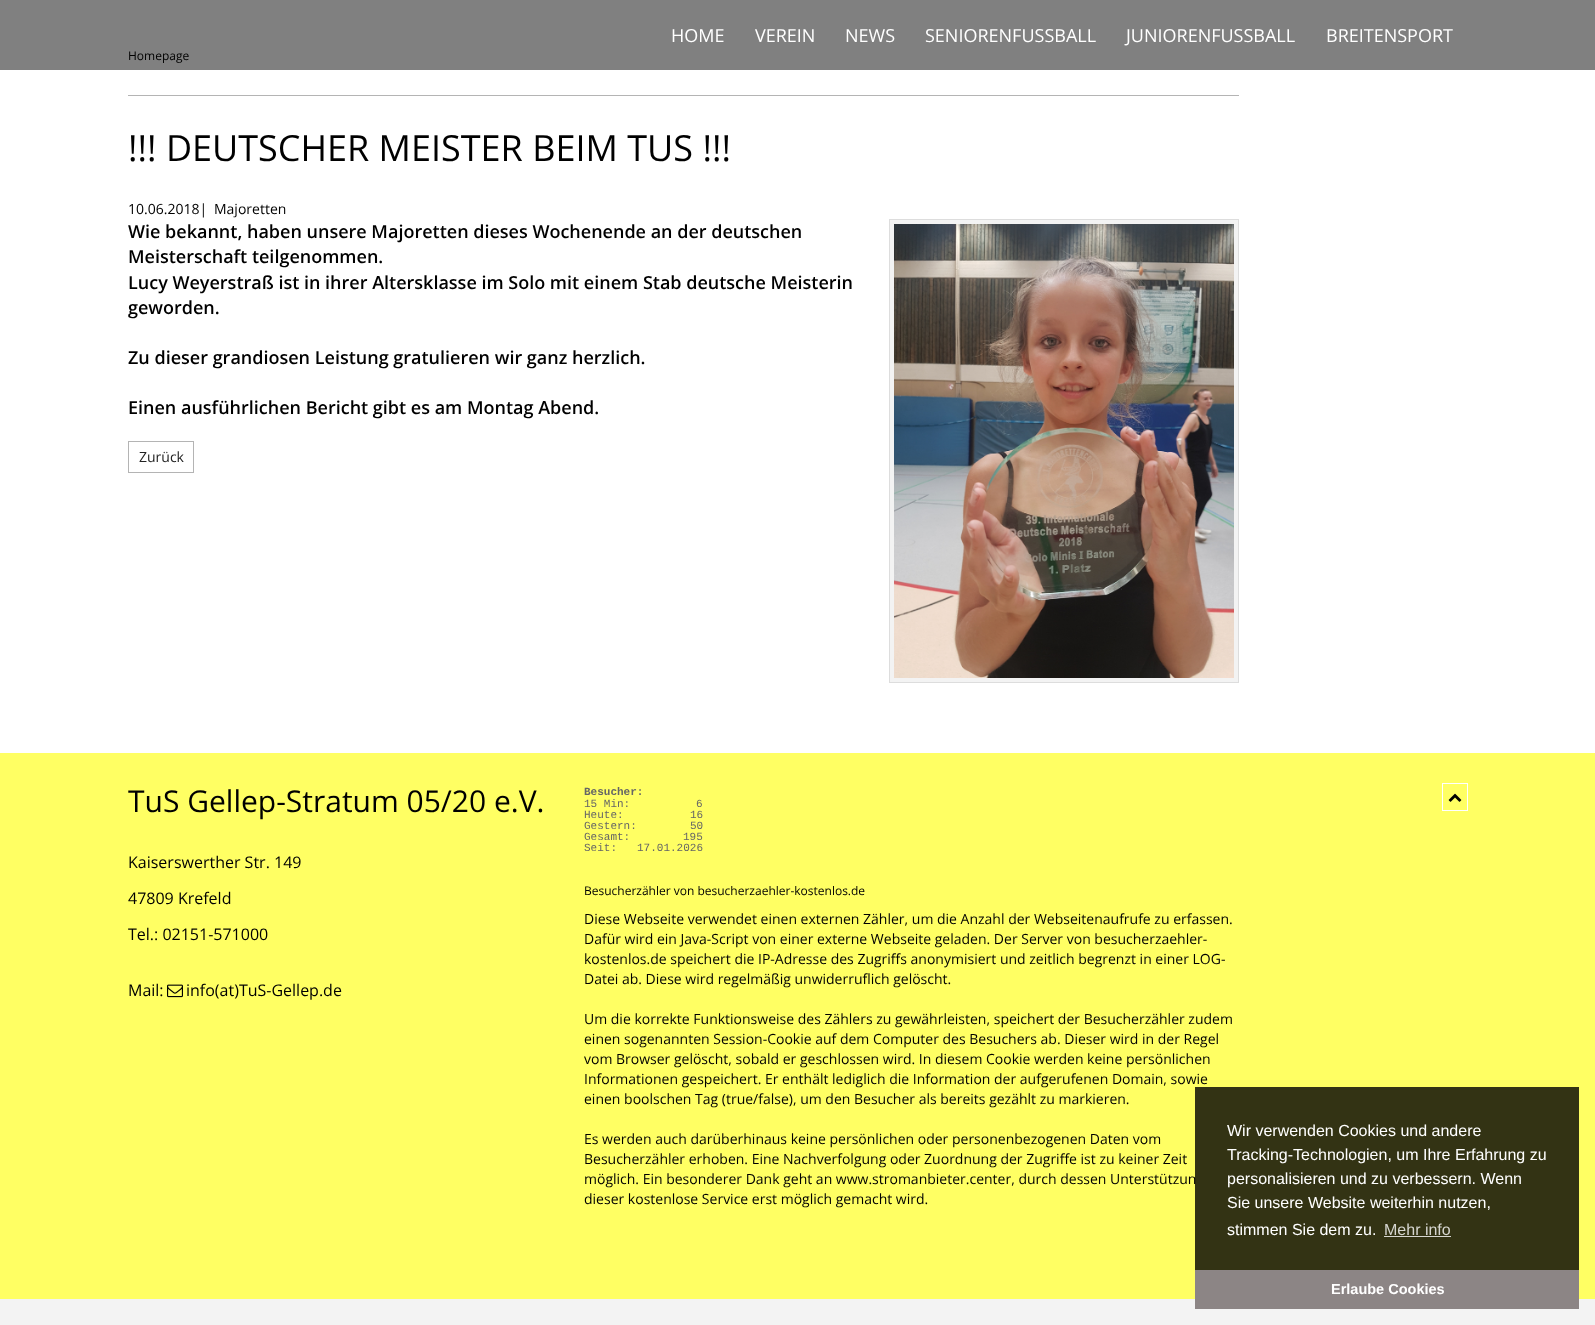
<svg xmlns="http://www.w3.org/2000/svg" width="1595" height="1325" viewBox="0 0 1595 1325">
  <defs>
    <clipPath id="clip1"><rect x="128" y="783" width="426" height="280"/></clipPath>
  </defs>
  <rect width="100%" height="100%" fill="rgb(243,243,243)"/>
  <rect x="0" y="70" width="1595" height="683" fill="rgb(255,255,255)"/>
  <rect x="0" y="0" width="1595" height="70" fill="rgb(128,128,128)"/>
  <g font-family="Open Sans" font-size="18" fill="rgb(255,255,255)">
    <text x="671" y="42">HOME</text>
    <text x="755" y="42">VEREIN</text>
    <text x="845" y="42">NEWS</text>
    <text x="925" y="42">SENIORENFUSSBALL</text>
    <text x="1126" y="42">JUNIORENFUSSBALL</text>
    <text x="1326" y="42">BREITENSPORT</text>
  </g>
  <text x="128" y="60" font-family="Open Sans" font-size="12" fill="rgb(0,0,0)">Homepage</text>
  <rect x="128" y="95" width="1111" height="1" fill="rgb(180,180,180)"/>
  <text x="128" y="161" font-family="Open Sans" font-size="36" fill="rgb(0,0,0)">!!! DEUTSCHER MEISTER BEIM TUS !!!</text>
  <g font-family="Open Sans" font-size="14" fill="rgb(0,0,0)">
    <text x="128" y="214">10.06.2018|</text>
    <text x="214" y="214">Majoretten</text>
  </g>
  <g font-family="Open Sans" font-size="18" font-weight="600" fill="rgb(0,0,0)">
    <text>
      <tspan x="128" y="238">Wie bekannt, haben unsere Majoretten dieses Wochenende an der deutschen</tspan>
      <tspan x="128" y="263">Meisterschaft teilgenommen.</tspan>
      <tspan x="128" y="289">Lucy Weyerstraß ist in ihrer Altersklasse im Solo mit einem Stab deutsche Meisterin</tspan>
      <tspan x="128" y="314">geworden.</tspan>
    </text>
    <text x="128" y="364">Zu dieser grandiosen Leistung gratulieren wir ganz herzlich.</text>
    <text x="128" y="414">Einen ausführlichen Bericht gibt es am Montag Abend.</text>
  </g>
  <rect x="128.5" y="441.5" width="65" height="31" fill="none" stroke="rgb(180,180,180)"/>
  <text x="139" y="462" font-family="Open Sans" font-size="14" fill="rgb(34,34,34)">Zurück</text>
  <rect x="889.5" y="219.5" width="349" height="463" fill="rgb(243,243,243)" stroke="rgb(221,221,221)"/>
  <image x="894" y="224" width="340" height="454" href="pic1.png"/>
  <rect x="0" y="753" width="1595" height="546" fill="rgb(255,255,99)"/>
  <g clip-path="url(#clip1)">
    <text x="128" y="812" font-family="Open Sans" font-size="30" fill="rgb(0,0,0)">TuS Gellep-Stratum 05/20 e.V.</text>
  </g>
  <g font-family="Open Sans" font-size="16" fill="rgb(0,0,0)">
    <text x="128" y="868">Kaiserswerther Str. 149</text>
    <text x="128" y="904">47809 Krefeld</text>
    <text x="128" y="940">Tel.: 02151-571000</text>
    <text x="128" y="996">Mail:</text>
  </g>
  <image x="167" y="984" width="16" height="14" href="pic2.png"/>
  <text x="186" y="996" font-family="Open Sans" font-size="16" fill="rgb(0,0,0)">info(at)TuS-Gellep.de</text>
  <text x="584" y="795" font-family="Liberation Mono" font-size="11" font-weight="bold" fill="rgb(102,102,102)">Besucher:</text>
  <g font-family="Liberation Mono" font-size="11" fill="rgb(102,102,102)">
    <text x="584" y="807">15 Min:</text>
    <text x="696" y="807">6</text>
    <text x="584" y="818">Heute:</text>
    <text x="690" y="818">16</text>
    <text x="584" y="829">Gestern:</text>
    <text x="690" y="829">50</text>
    <text x="584" y="840">Gesamt:</text>
    <text x="683" y="840">195</text>
    <text x="584" y="851">Seit:</text>
    <text x="637" y="851">17.01.2026</text>
  </g>
  <text x="584" y="895" font-family="Open Sans" font-size="12" fill="rgb(0,0,0)">Besucherzähler von besucherzaehler-kostenlos.de</text>
  <g font-family="Open Sans" font-size="14" fill="rgb(0,0,0)">
    <text>
      <tspan x="584" y="924">Diese Webseite verwendet einen externen Zähler, um die Anzahl der Webseitenaufrufe zu erfassen.</tspan>
      <tspan x="584" y="944">Dafür wird ein Java-Script von einer externe Webseite geladen. Der Server von besucherzaehler-</tspan>
      <tspan x="584" y="964">kostenlos.de speichert die IP-Adresse des Zugriffs anonymisiert und zeitlich begrenzt in einer LOG-</tspan>
      <tspan x="584" y="984">Datei ab. Diese wird regelmäßig unwiderruflich gelöscht.</tspan>
    </text>
    <text>
      <tspan x="584" y="1024">Um die korrekte Funktionsweise des Zählers zu gewährleisten, speichert der Besucherzähler zudem</tspan>
      <tspan x="584" y="1044">einen sogenannten Session-Cookie auf dem Computer des Besuchers ab. Dieser wird in der Regel</tspan>
      <tspan x="584" y="1064">vom Browser gelöscht, sobald er geschlossen wird. In diesem Cookie werden keine persönlichen</tspan>
      <tspan x="584" y="1084">Informationen gespeichert. Er enthält lediglich die Information der aufgerufenen Domain, sowie</tspan>
      <tspan x="584" y="1104">einen boolschen Tag (true/false), um den Besucher als bereits gezählt zu markieren.</tspan>
    </text>
    <text>
      <tspan x="584" y="1144">Es werden auch darüberhinaus keine persönlichen oder personenbezogenen Daten vom</tspan>
      <tspan x="584" y="1164">Besucherzähler erhoben. Eine Nachverfolgung oder Zuordnung der Zugriffe ist zu keiner Zeit</tspan>
      <tspan x="584" y="1184">möglich. Ein besonderer Dank geht an www.stromanbieter.center, durch dessen Unterstützun</tspan>
      <tspan x="584" y="1204">dieser kostenlose Service erst möglich gemacht wird.</tspan>
    </text>
  </g>
  <rect x="1442.5" y="783.5" width="25" height="27" fill="none" stroke="rgb(255,255,255)"/>
  <image x="1448" y="793" width="14" height="9" href="pic3.png"/>
  <rect x="1195" y="1087" width="384" height="183" fill="rgba(0,0,0,0.8)"/>
  <g font-family="Liberation Sans" font-size="16" fill="rgb(255,255,255)">
    <text>
      <tspan x="1227" y="1136">Wir verwenden Cookies und andere</tspan>
      <tspan x="1227" y="1160">Tracking-Technologien, um Ihre Erfahrung zu</tspan>
      <tspan x="1227" y="1184">personalisieren und zu verbessern. Wenn</tspan>
      <tspan x="1227" y="1208">Sie unsere Website weiterhin nutzen,</tspan>
      <tspan x="1227" y="1235">stimmen Sie dem zu.</tspan>
    </text>
  </g>
  <text x="1384" y="1235" font-family="Liberation Sans" font-size="16" fill="rgb(214,214,208)">Mehr info</text>
  <rect x="1384" y="1236" width="67" height="1" fill="rgba(255,255,255,0.8)"/>
  <rect x="1195" y="1270" width="384" height="39" fill="rgb(140,133,133)"/>
  <text x="1331" y="1294" font-family="Liberation Sans" font-size="14.5" font-weight="bold" fill="rgb(255,255,255)">Erlaube Cookies</text>
</svg>
